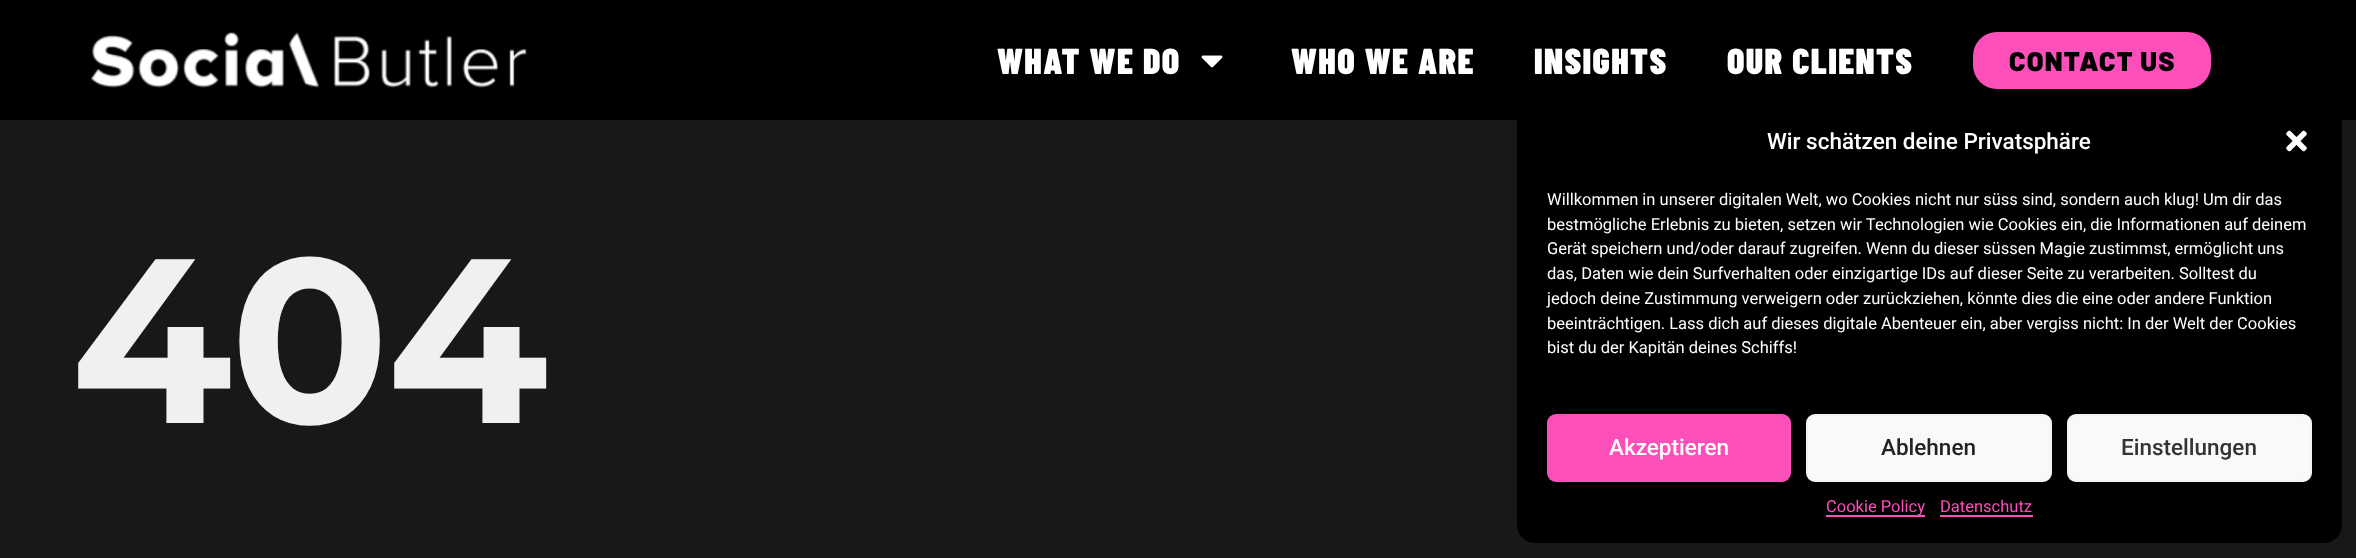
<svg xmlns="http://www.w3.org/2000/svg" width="2356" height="558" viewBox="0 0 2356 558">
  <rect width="100%" height="100%" fill="rgb(24,24,24)"/>
  <rect x="0" y="0" width="2356" height="120" fill="rgb(0,0,0)"/>
  <image x="91" y="32" width="436" height="56" href="pic1.png"/>
  <text x="997" y="74" font-family="Barlow Condensed" font-size="36" font-weight="900" letter-spacing="1.4" fill="rgb(255,255,255)">WHAT WE DO</text>
  <image x="1201" y="55" width="22" height="13" href="pic2.png"/>
  <g font-family="Barlow Condensed" font-size="36" font-weight="900" letter-spacing="1.4" fill="rgb(255,255,255)">
    <text x="1291" y="74">WHO WE ARE</text>
    <text x="1534" y="74">INSIGHTS</text>
    <text x="1727" y="74">OUR CLIENTS</text>
  </g>
  <rect x="1973" y="32" width="238" height="57" rx="24" fill="rgb(253,79,186)"/>
  <text x="2009" y="71" font-family="Barlow" font-size="27" font-weight="900" letter-spacing="1.25" fill="rgb(0,0,0)">CONTACT US</text>
  <text x="71" y="423" font-family="Montserrat" font-size="234" font-weight="bold" letter-spacing="-2" fill="rgb(240,240,240)">404</text>
  <rect x="1517" y="102" width="825" height="441" rx="18" fill="rgb(0,0,0)"/>
  <text x="1767" y="149" font-family="Roboto" font-size="22.5" font-weight="500" fill="rgb(255,255,255)">Wir schätzen deine Privatsphäre</text>
  <image x="2286" y="130" width="21" height="22" href="pic3.png"/>
  <g font-family="Roboto" font-size="16.5" fill="rgb(255,255,255)">
    <text>
      <tspan x="1547" y="205">Willkommen in unserer digitalen Welt, wo Cookies nicht nur süss sind, sondern auch klug! Um dir das</tspan>
      <tspan x="1547" y="230">bestmögliche Erlebnis zu bieten, setzen wir Technologien wie Cookies ein, die Informationen auf deinem</tspan>
      <tspan x="1547" y="254">Gerät speichern und/oder darauf zugreifen. Wenn du dieser süssen Magie zustimmst, ermöglicht uns</tspan>
      <tspan x="1547" y="279">das, Daten wie dein Surfverhalten oder einzigartige IDs auf dieser Seite zu verarbeiten. Solltest du</tspan>
      <tspan x="1547" y="304">jedoch deine Zustimmung verweigern oder zurückziehen, könnte dies die eine oder andere Funktion</tspan>
      <tspan x="1547" y="329">beeinträchtigen. Lass dich auf dieses digitale Abenteuer ein, aber vergiss nicht: In der Welt der Cookies</tspan>
      <tspan x="1547" y="353">bist du der Kapitän deines Schiffs!</tspan>
    </text>
  </g>
  <rect x="1548" y="415" width="242" height="66" rx="8" fill="rgb(253,79,186)" stroke="rgb(253,79,186)" stroke-width="2"/>
  <text x="1609" y="455" font-family="Roboto" font-size="22.5" font-weight="500" fill="rgb(255,255,255)">Akzeptieren</text>
  <rect x="1807" y="415" width="244" height="66" rx="8" fill="rgb(249,249,249)" stroke="rgb(242,242,242)" stroke-width="2"/>
  <text x="1881" y="455" font-family="Roboto" font-size="22.5" font-weight="500" fill="rgb(34,34,34)">Ablehnen</text>
  <rect x="2068" y="415" width="243" height="66" rx="8" fill="rgb(249,249,249)" stroke="rgb(242,242,242)" stroke-width="2"/>
  <text x="2121" y="455" font-family="Roboto" font-size="22.5" font-weight="500" fill="rgb(51,51,51)">Einstellungen</text>
  <rect x="1826" y="515" width="99" height="2" fill="rgb(253,79,186)"/>
  <g font-family="Roboto" font-size="16.5" fill="rgb(253,79,186)">
    <text x="1826" y="512">Cookie Policy</text>
    <text x="1940" y="512">Datenschutz</text>
  </g>
  <rect x="1940" y="515" width="93" height="2" fill="rgb(253,79,186)"/>
</svg>
